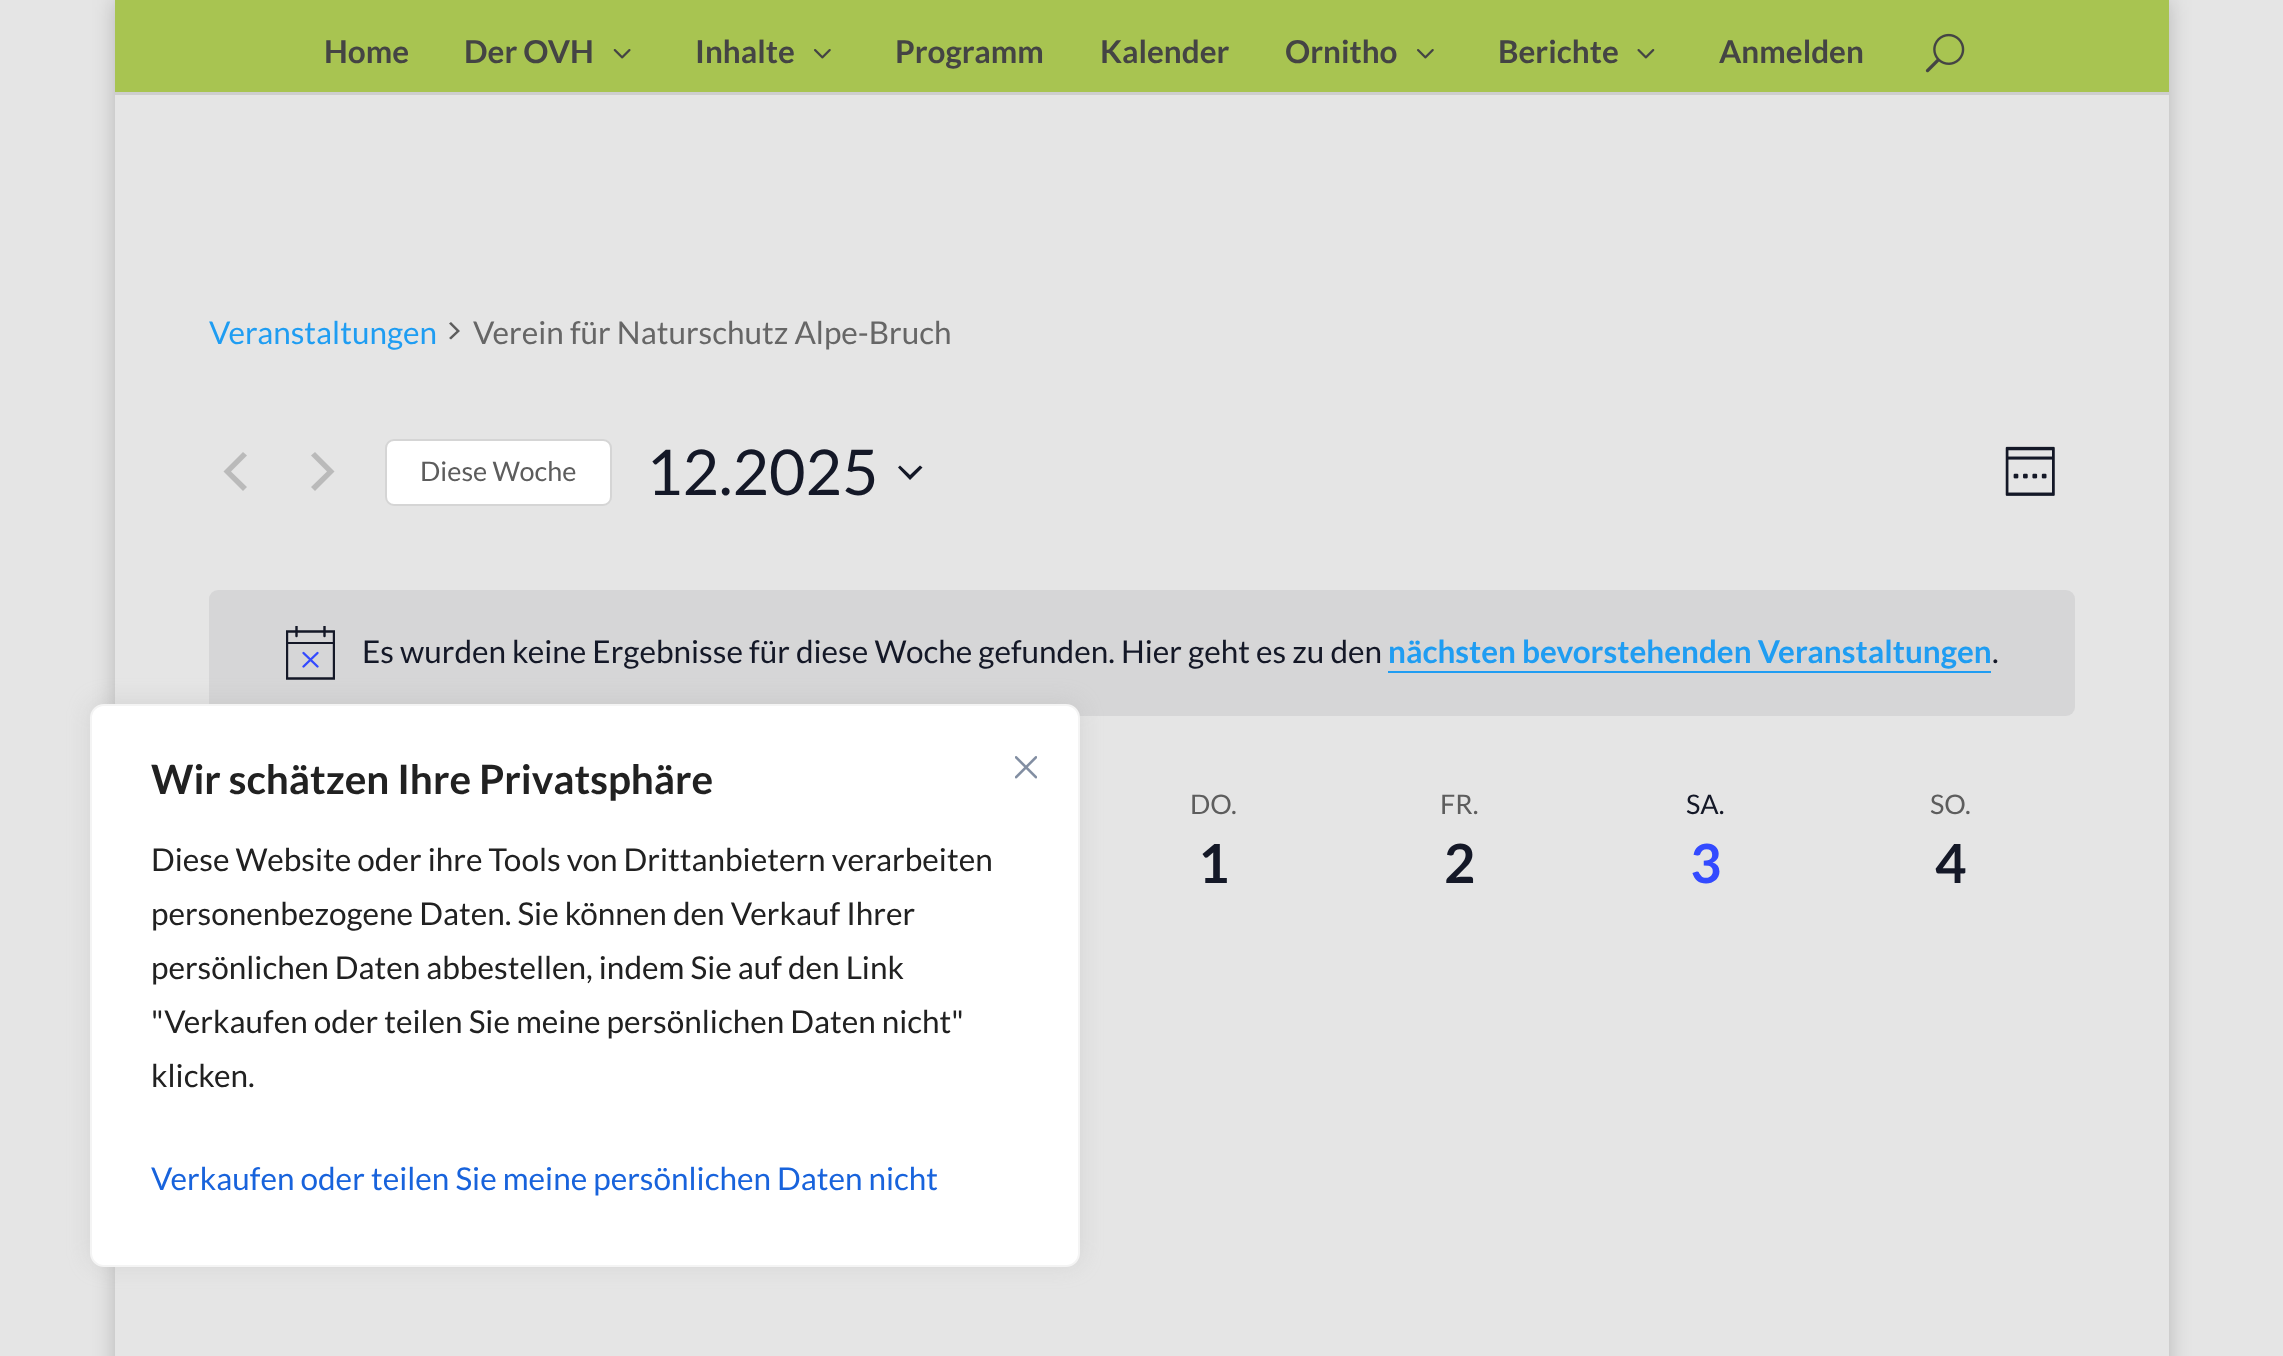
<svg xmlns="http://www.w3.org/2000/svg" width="2283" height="1356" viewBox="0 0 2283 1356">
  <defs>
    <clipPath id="clip1"><path d="M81 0H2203V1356H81ZM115 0H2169V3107H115Z" clip-rule="evenodd"/></clipPath>
    <clipPath id="clip2"><rect x="286" y="626" width="49" height="54"/></clipPath>
  </defs>
  <rect width="100%" height="100%" fill="rgb(229,229,229)"/>
  <g clip-path="url(#clip1)">
    <rect x="115" y="0" width="2054" height="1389" fill="rgba(0,0,0,0.2)" filter="blur(11px)"/>
  </g>
  <rect x="115" y="92" width="2054" height="3" fill="rgb(206,206,206)"/>
  <rect x="115" y="0" width="2054" height="92" fill="rgb(168,196,81)"/>
  <g font-family="Lato" font-size="31.5" font-weight="bold" fill="rgb(68,68,68)">
    <text x="324" y="63">Home</text>
    <text x="464" y="63">Der OVH</text>
  </g>
  <image x="613" y="49" width="18" height="10" href="pic1.png"/>
  <text x="695" y="63" font-family="Lato" font-size="31.5" font-weight="bold" fill="rgb(68,68,68)">Inhalte</text>
  <image x="814" y="49" width="17" height="10" href="pic2.png"/>
  <g font-family="Lato" font-size="31.5" font-weight="bold" fill="rgb(68,68,68)">
    <text x="895" y="63">Programm</text>
    <text x="1100" y="63">Kalender</text>
    <text x="1285" y="63">Ornitho</text>
  </g>
  <image x="1417" y="49" width="17" height="10" href="pic2.png"/>
  <text x="1498" y="63" font-family="Lato" font-size="31.5" font-weight="bold" fill="rgb(68,68,68)">Berichte</text>
  <image x="1637" y="49" width="18" height="10" href="pic3.png"/>
  <text x="1719" y="63" font-family="Lato" font-size="31.5" font-weight="bold" fill="rgb(68,68,68)">Anmelden</text>
  <image x="1925" y="33" width="40" height="40" href="pic4.png"/>
  <text x="209" y="344" font-family="Lato" font-size="31.5" fill="rgb(31,157,242)">Veranstaltungen</text>
  <path d="M449 323.5L451 322L460 331L451 339.5L449 338L456.5 331Z" fill="rgb(93,93,93)"/>
  <text x="473" y="344" font-family="Lato" font-size="31.5" fill="rgb(102,102,102)">Verein für Naturschutz Alpe-Bruch</text>
  <path d="M247 487L243 491L223.5 471.5L243 452L247 455.5L231 471.5Z" fill="rgb(186,186,186)"/>
  <path d="M311 455.5L315 452L334.5 471.5L315 491L311 487L327 471.5Z" fill="rgb(186,186,186)"/>
  <rect x="386" y="440" width="225" height="65" rx="8" fill="rgb(255,255,255)" stroke="rgb(213,213,213)" stroke-width="2"/>
  <text x="420" y="481" font-family="Lato" font-size="27" fill="rgb(93,93,93)">Diese Woche</text>
  <text x="646" y="495" font-family="Lato" font-size="63" fill="rgb(20,24,39)">12.2025</text>
  <path d="M900 465.5L910 475L920 465.5L922.5 467.5L910 480L898 467.5Z" fill="rgb(20,24,39)" fill-rule="evenodd"/>
  <image x="2005" y="446" width="50" height="50" href="pic5.png"/>
  <rect x="209" y="590" width="1866" height="126" rx="9" fill="rgb(214,214,215)"/>
  <g clip-path="url(#clip2)">
    <path d="M287 631.5H334V678.5H287Z" fill="none" stroke="rgb(20,24,39)" stroke-width="2.4"/>
  </g>
  <path d="M303.5 653L317.5 666.5M317.5 653L303.5 666.5" fill="none" stroke="rgb(51,74,255)" stroke-width="2.4" stroke-linecap="round"/>
  <g clip-path="url(#clip2)">
    <path d="M296.5 626.5V636M324.5 626.5V636" fill="none" stroke="rgb(20,24,39)" stroke-width="2.4" stroke-linecap="round"/>
  </g>
  <rect x="286" y="642" width="49" height="2" fill="rgb(20,24,39)"/>
  <text x="362" y="663" font-family="Lato" font-size="31.5" fill="rgb(20,24,39)">Es wurden keine Ergebnisse für diese Woche gefunden. Hier geht es zu den</text>
  <text x="1388" y="663" font-family="Lato" font-size="31.5" font-weight="bold" fill="rgb(31,157,242)">nächsten bevorstehenden Veranstaltungen</text>
  <rect x="1388" y="671" width="603" height="2" fill="rgb(31,157,242)"/>
  <text x="1992" y="663" font-family="Lato" font-size="31.5" fill="rgb(20,24,39)">.</text>
  <text x="1190" y="814" font-family="Lato" font-size="27" fill="rgb(93,93,93)">DO.</text>
  <text x="1198" y="883" font-family="Lato" font-size="54" font-weight="bold" fill="rgb(20,24,39)">1</text>
  <text x="1440" y="814" font-family="Lato" font-size="27" fill="rgb(93,93,93)">FR.</text>
  <text x="1444" y="883" font-family="Lato" font-size="54" font-weight="bold" fill="rgb(20,24,39)">2</text>
  <text x="1686" y="814" font-family="Lato" font-size="27" fill="rgb(20,24,39)">SA.</text>
  <text x="1690" y="883" font-family="Lato" font-size="54" font-weight="bold" fill="rgb(51,74,255)">3</text>
  <text x="1930" y="814" font-family="Lato" font-size="27" fill="rgb(93,93,93)">SO.</text>
  <text x="1935" y="883" font-family="Lato" font-size="54" font-weight="bold" fill="rgb(20,24,39)">4</text>
  <rect x="90" y="702" width="990" height="563" rx="14" fill="rgba(172,171,171,0.3)" filter="blur(11px)"/>
  <rect x="91" y="705" width="988" height="561" rx="13" fill="rgb(255,255,255)" stroke="rgb(244,244,244)" stroke-width="2"/>
  <text x="151" y="794" font-family="Lato" font-size="40.5" font-weight="bold" fill="rgb(33,33,33)">Wir schätzen Ihre Privatsphäre</text>
  <g font-family="Lato" font-size="31.5" fill="rgb(33,33,33)">
    <text>
      <tspan x="151" y="871">Diese Website oder ihre Tools von Drittanbietern verarbeiten</tspan>
      <tspan x="151" y="925">personenbezogene Daten. Sie können den Verkauf Ihrer</tspan>
      <tspan x="151" y="979">persönlichen Daten abbestellen, indem Sie auf den Link</tspan>
      <tspan x="151" y="1033">"Verkaufen oder teilen Sie meine persönlichen Daten nicht"</tspan>
      <tspan x="151" y="1087">klicken.</tspan>
    </text>
  </g>
  <text x="151" y="1190" font-family="Lato" font-size="31.5" fill="rgb(24,99,220)">Verkaufen oder teilen Sie meine persönlichen Daten nicht</text>
  <image x="1015" y="756" width="22" height="23" href="pic6.png"/>
</svg>
